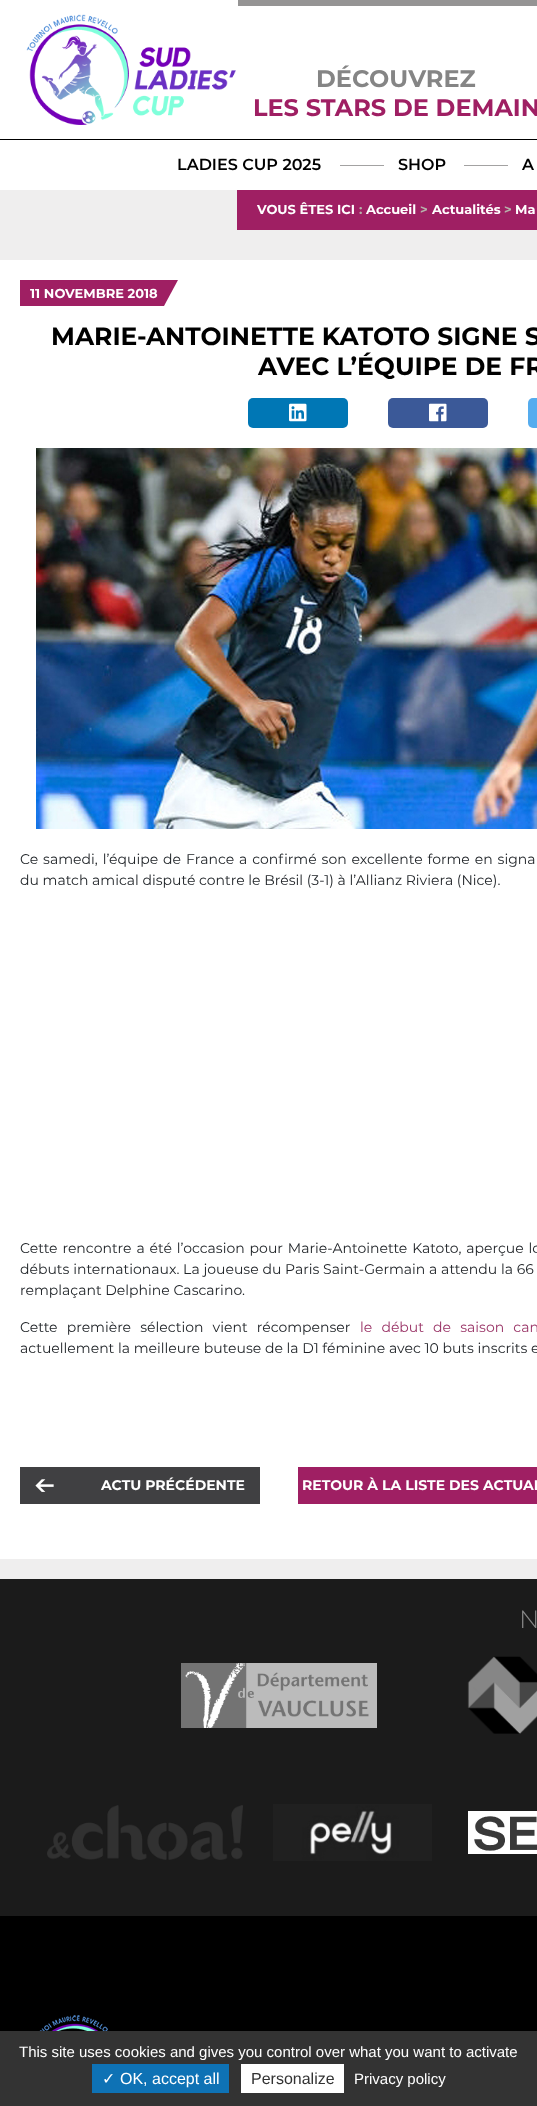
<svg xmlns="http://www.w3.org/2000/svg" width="537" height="2106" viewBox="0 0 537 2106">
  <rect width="100%" height="100%" fill="rgb(239,238,238)"/>
  <rect x="0" y="0" width="537" height="190" fill="rgb(255,255,255)"/>
  <rect x="0" y="139" width="537" height="1" fill="rgb(0,0,0)"/>
  <rect x="238" y="0" width="299" height="6" fill="rgb(149,148,148)"/>
  <image x="26" y="14" width="210" height="111" href="pic1.png"/>
  <text x="316" y="87" font-family="Montserrat" font-size="24" font-weight="bold" fill="rgb(133,133,133)">DÉCOUVREZ</text>
  <text x="253" y="116" font-family="Montserrat" font-size="24" font-weight="bold" fill="rgb(159,31,99)">LES STARS DE DEMAIN</text>
  <text x="177" y="170" font-family="Montserrat" font-size="16" font-weight="600" fill="rgb(0,0,0)">LADIES CUP 2025</text>
  <rect x="340" y="165" width="44" height="1" fill="rgb(163,162,162)"/>
  <text x="398" y="170" font-family="Montserrat" font-size="16" font-weight="600" fill="rgb(0,0,0)">SHOP</text>
  <rect x="464" y="165" width="44" height="1" fill="rgb(163,162,162)"/>
  <text x="522" y="170" font-family="Montserrat" font-size="16" font-weight="600" fill="rgb(0,0,0)">A</text>
  <rect x="237" y="190" width="300" height="40" fill="rgb(159,31,99)"/>
  <text x="257" y="214" font-family="Montserrat" font-size="13" font-weight="bold" fill="rgb(255,255,255)">VOUS ÊTES ICI</text>
  <text x="359" y="214" font-family="Montserrat" font-size="13" font-weight="bold" fill="rgb(182,177,171)">:</text>
  <text x="366" y="214" font-family="Montserrat" font-size="13" font-weight="bold" fill="rgb(255,255,255)">Accueil</text>
  <text x="420" y="214" font-family="Montserrat" font-size="13" font-weight="bold" fill="rgb(182,177,171)">&gt;</text>
  <text x="432" y="214" font-family="Montserrat" font-size="13" font-weight="bold" fill="rgb(255,255,255)">Actualités</text>
  <text x="504" y="214" font-family="Montserrat" font-size="13" font-weight="bold" fill="rgb(182,177,171)">&gt;</text>
  <text x="515" y="214" font-family="Montserrat" font-size="13" font-weight="bold" fill="rgb(255,255,255)">Ma</text>
  <rect x="0" y="260" width="537" height="1299" fill="rgb(255,255,255)"/>
  <rect x="20" y="280" width="158" height="26" fill="rgb(159,31,99)"/>
  <text x="30" y="298" font-family="Montserrat" font-size="13" font-weight="bold" fill="rgb(255,255,255)">11 NOVEMBRE 2018</text>
  <path d="M178 306H164L178 280Z" fill="rgb(255,255,255)"/>
  <g font-family="Montserrat" font-size="25" font-weight="bold" fill="rgb(0,0,0)">
    <text x="51" y="345">MARIE-ANTOINETTE KATOTO SIGNE S</text>
    <text x="258" y="375">AVEC L’ÉQUIPE DE FR</text>
  </g>
  <rect x="248" y="398" width="100" height="30" rx="5" fill="rgb(0,119,181)"/>
  <image x="289" y="403" width="18" height="19" href="pic2.png"/>
  <rect x="388" y="398" width="100" height="30" rx="5" fill="rgb(59,89,152)"/>
  <image x="429" y="403" width="18" height="19" href="pic3.png"/>
  <rect x="528" y="398" width="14" height="30" rx="5" fill="rgb(85,172,238)"/>
  <image x="36" y="448" width="501" height="381" href="pic4.png"/>
  <g font-family="Montserrat" font-size="14" fill="rgb(33,37,41)">
    <text>
      <tspan x="20" y="864" word-spacing="1.25">Ce samedi, l’équipe de France a confirmé son excellente forme en signa</tspan>
      <tspan x="20" y="885">du match amical disputé contre le Brésil (3-1) à l’Allianz Riviera (Nice).</tspan>
    </text>
    <text>
      <tspan x="20" y="1253" word-spacing="1.25">Cette rencontre a été l’occasion pour Marie-Antoinette Katoto, aperçue lo</tspan>
      <tspan x="20" y="1274" word-spacing="0.1">débuts internationaux. La joueuse du Paris Saint-Germain a attendu la 66</tspan>
      <tspan x="20" y="1295">remplaçant Delphine Cascarino.</tspan>
    </text>
    <text x="20" y="1332" word-spacing="5.5">Cette première sélection vient récompenser</text>
  </g>
  <text x="360" y="1332" word-spacing="5.5" font-family="Montserrat" font-size="14" fill="rgb(153,51,102)">le début de saison can</text>
  <text x="20" y="1353" font-family="Montserrat" font-size="14" fill="rgb(33,37,41)">actuellement la meilleure buteuse de la D1 féminine avec 10 buts inscrits e</text>
  <rect x="20" y="1467" width="240" height="37" fill="rgb(64,64,66)"/>
  <image x="35" y="1479" width="19" height="13" href="pic5.png"/>
  <text x="101" y="1490" font-family="Montserrat" font-size="14" font-weight="bold" fill="rgb(255,255,255)">ACTU PRÉCÉDENTE</text>
  <rect x="298" y="1467" width="239" height="37" fill="rgb(159,31,99)"/>
  <text x="302" y="1490" font-family="Montserrat" font-size="14" font-weight="bold" fill="rgb(255,255,255)">RETOUR À LA LISTE DES ACTUAL</text>
  <rect x="0" y="1579" width="537" height="337" fill="rgb(27,27,27)"/>
  <text x="519" y="1628" font-family="Montserrat" font-size="25" font-weight="300" fill="rgb(133,133,133)">N</text>
  <image x="181" y="1663" width="196" height="65" href="pic6.png"/>
  <image x="467" y="1656" width="70" height="78" href="pic7.png"/>
  <image x="47" y="1805" width="196" height="55" href="pic8.png"/>
  <image x="273" y="1804" width="159" height="57" href="pic9.png"/>
  <image x="468" y="1811" width="69" height="43" href="pic10.png"/>
  <rect x="0" y="1916" width="537" height="115" fill="rgb(0,0,0)"/>
  <image x="39" y="2015" width="69" height="16" href="pic11.png"/>
  <rect x="0" y="2031" width="537" height="75" fill="rgb(51,51,51)"/>
  <text x="19" y="2057" font-family="Liberation Sans" font-size="15" fill="rgb(255,255,255)">This site uses cookies and gives you control over what you want to activate</text>
  <rect x="92" y="2064" width="137" height="29" fill="rgb(14,114,181)"/>
  <text x="102" y="2084" font-family="DejaVu Sans" font-size="16" fill="rgb(255,255,255)">✓</text>
  <text x="120" y="2084" font-family="Liberation Sans" font-size="16" fill="rgb(255,255,255)">OK, accept all</text>
  <rect x="241" y="2064" width="103" height="29" fill="rgb(255,255,255)"/>
  <text x="251" y="2084" font-family="Liberation Sans" font-size="16" fill="rgb(51,51,51)">Personalize</text>
  <text x="354" y="2084" font-family="Liberation Sans" font-size="15" fill="rgb(255,255,255)">Privacy policy</text>
</svg>
